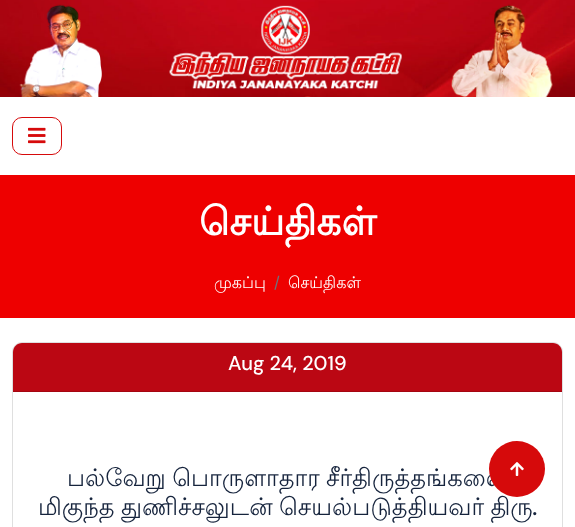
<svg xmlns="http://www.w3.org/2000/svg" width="575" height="527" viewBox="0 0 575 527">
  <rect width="100%" height="100%" fill="rgb(255,255,255)"/>
  <image x="0" y="0" width="575" height="97" href="pic1.png"/>
  <image x="19" y="4" width="534" height="93" href="pic2.png"/>
  <rect x="12.5" y="117.5" width="49" height="37" rx="9.5" fill="none" stroke="rgb(214,10,11)"/>
  <image x="28" y="127" width="18" height="17" href="pic3.png"/>
  <rect x="0" y="175" width="575" height="143" fill="rgb(238,0,0)"/>
  <text x="199" y="235" font-family="Lohit Tamil" font-size="39" font-weight="bold" fill="rgb(255,255,255)">செய்திகள்</text>
  <text x="214" y="288" font-family="Lohit Tamil" font-size="16" fill="rgb(255,255,255)">முகப்பு</text>
  <text x="274" y="288" font-family="Inter" font-size="16" fill="rgb(108,117,125)">/</text>
  <text x="288" y="288" font-family="Lohit Tamil" font-size="16" fill="rgb(255,255,255)">செய்திகள்</text>
  <rect x="12.5" y="342.5" width="550" height="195" rx="9.5" fill="none" stroke="rgb(223,223,223)"/>
  <path d="M22 343H553C558 343 562 347 562 352V392H13V352C13 347 17 343 22 343Z" fill="rgb(187,7,19)"/>
  <rect x="13" y="391" width="549" height="1" fill="rgb(164,6,17)"/>
  <text x="228" y="370" font-family="DM Sans" font-size="20" font-weight="500" fill="rgb(255,255,255)">Aug 24, 2019</text>
  <g font-family="Lohit Tamil" font-size="24.25" fill="rgb(22,36,61)">
    <text x="67" y="486" word-spacing="-1">பல்வேறு பொருளாதார சீர்திருத்தங்களை</text>
    <text x="38" y="515" word-spacing="-1">மிகுந்த துணிச்சலுடன் செயல்படுத்தியவர் திரு</text>
  </g>
  <text x="532" y="515" font-family="'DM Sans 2'" font-size="24.25" font-weight="500" fill="rgb(22,36,61)">.</text>
  <circle cx="517" cy="469" r="28" fill="rgb(214,10,11)"/>
  <image x="510" y="462" width="14" height="14" href="pic4.png"/>
</svg>
